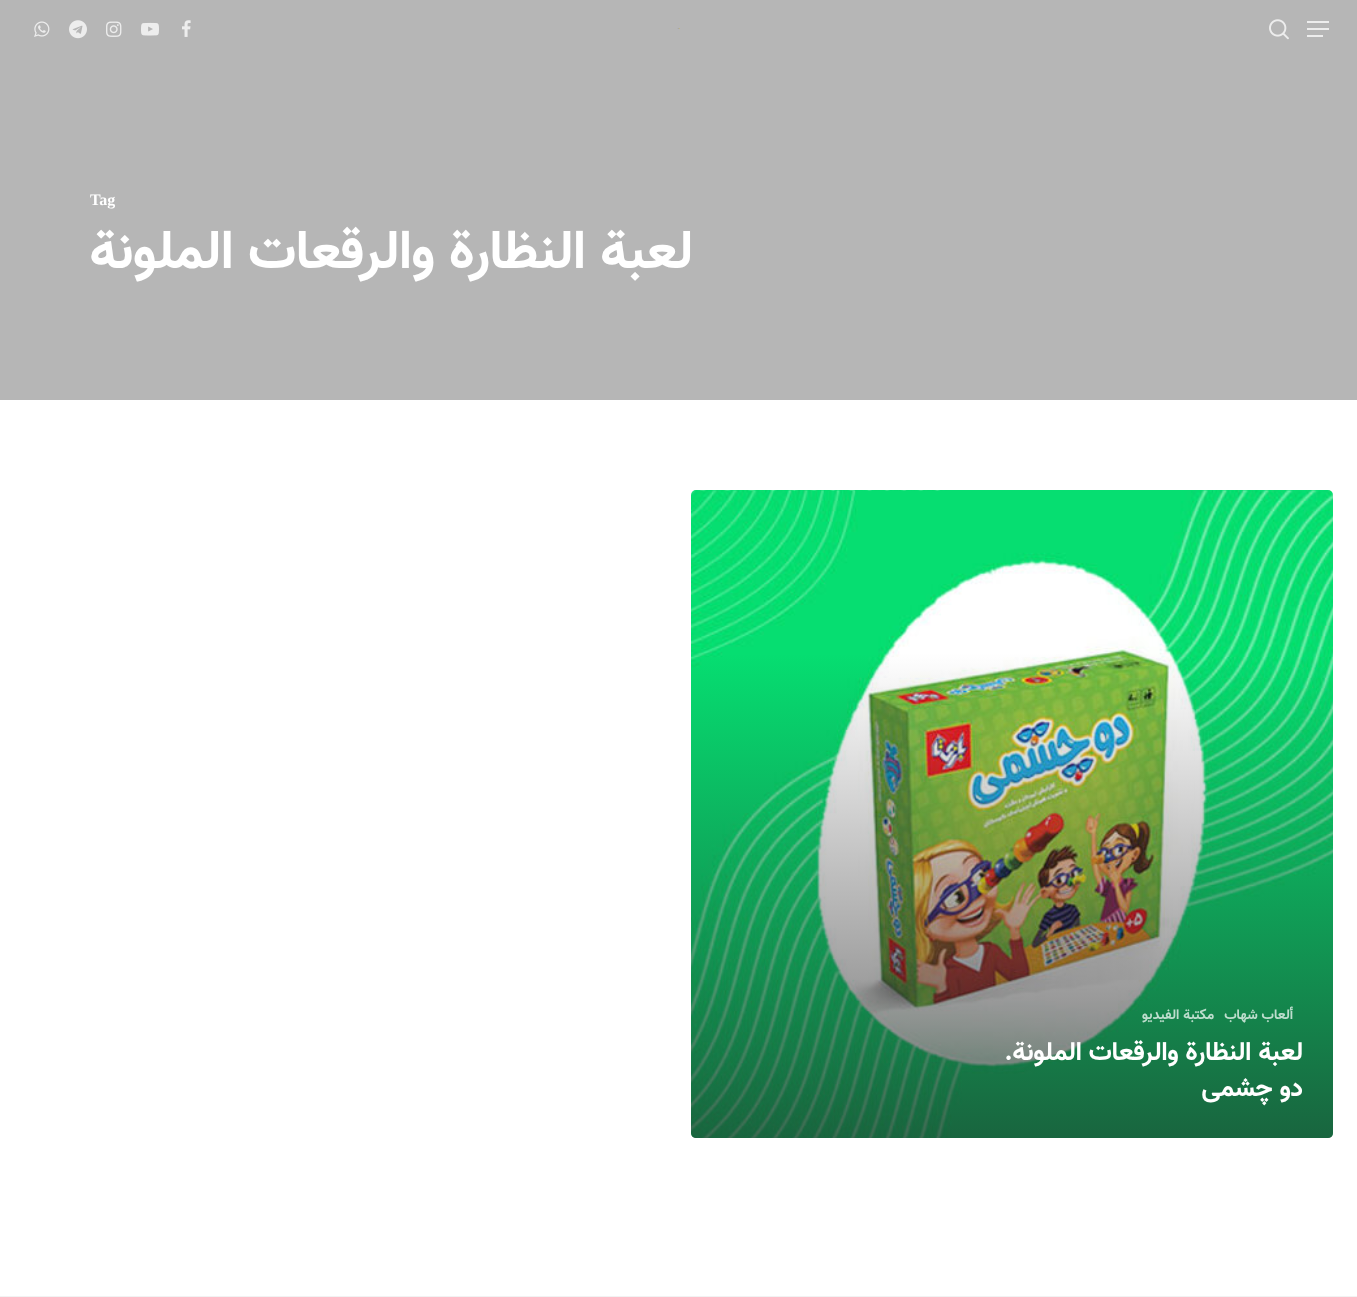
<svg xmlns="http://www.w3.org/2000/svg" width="1357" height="1297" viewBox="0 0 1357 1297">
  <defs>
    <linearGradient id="g1" gradientUnits="userSpaceOnUse" x1="1014" y1="653" x2="1014" y2="1141"><stop offset="0" stop-color="rgb(35,35,35)" stop-opacity="0"/><stop offset="1" stop-color="rgb(35,35,35)" stop-opacity="0.65"/></linearGradient>
  </defs>
  <rect width="100%" height="100%" fill="rgb(255,255,255)"/>
  <rect x="0" y="0" width="1357" height="400" fill="rgb(182,182,182)"/>
  <rect x="1307" y="21" width="22" height="2" fill="rgb(237,237,237)"/>
  <rect x="1307" y="35" width="16" height="2" fill="rgb(237,237,237)"/>
  <rect x="1307" y="28" width="22" height="2" fill="rgb(237,237,237)"/>
  <image x="1269" y="19" width="20" height="21" href="pic1.png"/>
  <image x="677" y="28" width="3" height="1" href="pic2.png"/>
  <image x="182" y="20" width="9" height="17" href="pic3.png"/>
  <image x="141" y="22" width="18" height="14" href="pic4.png"/>
  <image x="106" y="21" width="16" height="16" href="pic5.png"/>
  <image x="69" y="20" width="18" height="19" href="pic6.png"/>
  <image x="34" y="21" width="16" height="16" href="pic7.png"/>
  <text x="90" y="205" font-family="Liberation Serif" font-size="16" font-weight="bold" fill="rgb(255,255,255)">Tag</text>
  <text x="693" y="268" font-family="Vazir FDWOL" font-size="54" font-weight="bold" direction="rtl" fill="rgb(255,255,255)">لعبة النظارة والرقعات الملونة</text>
  <image x="691" y="490" width="642" height="648" href="pic8.png"/>
  <path d="M691 653H1333V1133C1333 1136 1331 1138 1328 1138H696C693 1138 691 1136 691 1133Z" fill="url(#g1)"/>
  <g font-family="Vazir FDWOL" font-size="14" font-weight="bold" direction="rtl" fill="rgb(189,221,205)">
    <text x="1293" y="1019">ألعاب شهاب</text>
    <text x="1214" y="1019">مكتبة الفيديو</text>
  </g>
  <g font-family="Vazir FDWOL" font-size="26" font-weight="bold" direction="rtl" fill="rgb(255,255,255)">
    <text>
      <tspan x="1303" y="1060">لعبة النظارة والرقعات الملونة.</tspan>
      <tspan x="1303" y="1096">دو چشمی</tspan>
    </text>
  </g>
  <rect x="0" y="1296" width="1357" height="1" fill="rgb(242,242,242)"/>
</svg>
